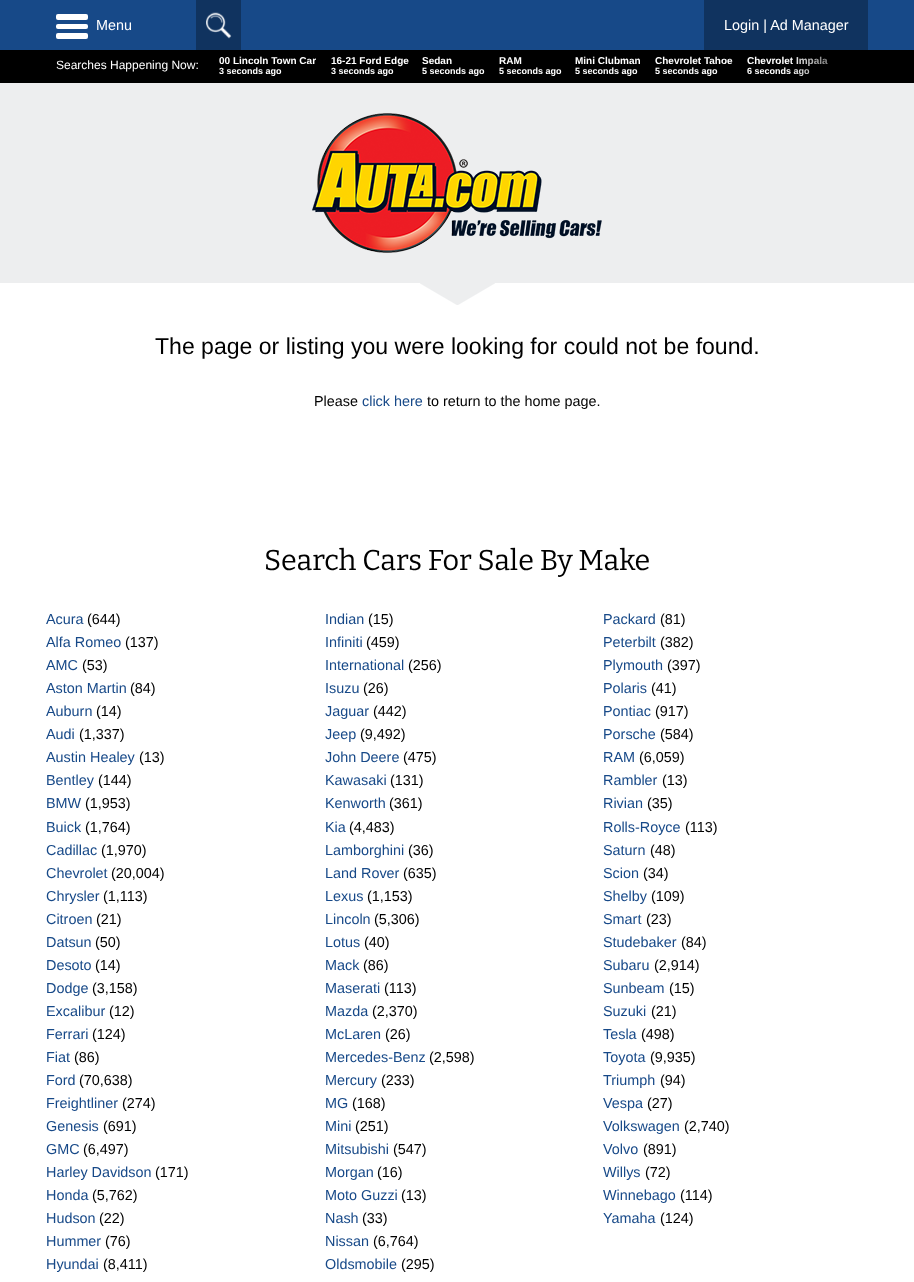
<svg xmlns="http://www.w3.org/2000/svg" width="914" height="1282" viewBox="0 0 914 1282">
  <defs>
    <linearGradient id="g1" gradientUnits="userSpaceOnUse" x1="868" y1="67" x2="788" y2="67"><stop offset="0" stop-color="rgb(0,0,0)"/><stop offset="1" stop-color="rgb(0,0,0)" stop-opacity="0"/></linearGradient>
  </defs>
  <rect width="100%" height="100%" fill="rgb(255,255,255)"/>
  <rect x="0" y="0" width="914" height="50" fill="rgb(23,73,136)"/>
  <rect x="56" y="14" width="32" height="6" rx="2" fill="rgb(255,255,255)"/>
  <rect x="56" y="24" width="32" height="5" rx="2" fill="rgb(255,255,255)"/>
  <rect x="56" y="33" width="32" height="6" rx="2" fill="rgb(255,255,255)"/>
  <text x="96" y="30" font-family="Liberation Sans" font-size="14.4" fill="rgb(255,255,255)">Menu</text>
  <rect x="196" y="0" width="45" height="50" fill="rgb(16,51,95)"/>
  <image x="206" y="12" width="26" height="27" href="pic1.png"/>
  <rect x="704" y="0" width="164" height="50" fill="rgb(16,51,95)"/>
  <text x="724" y="30" font-family="Liberation Sans" font-size="14.4" fill="rgb(255,255,255)">Login | Ad Manager</text>
  <rect x="0" y="83" width="914" height="200" fill="rgb(237,238,239)"/>
  <rect x="0" y="50" width="914" height="33" fill="rgb(0,0,0)"/>
  <text x="56" y="69" font-family="Liberation Sans" font-size="12" fill="rgb(255,255,255)">Searches Happening Now:</text>
  <text x="219" y="64" font-family="Liberation Sans" font-size="10" font-weight="bold" fill="rgb(255,255,255)">00 Lincoln Town Car</text>
  <text x="219" y="74" font-family="Liberation Sans" font-size="9" font-weight="bold" fill="rgb(255,255,255)">3 seconds ago</text>
  <text x="331" y="64" font-family="Liberation Sans" font-size="10" font-weight="bold" fill="rgb(255,255,255)">16-21 Ford Edge</text>
  <text x="331" y="74" font-family="Liberation Sans" font-size="9" font-weight="bold" fill="rgb(255,255,255)">3 seconds ago</text>
  <text x="422" y="64" font-family="Liberation Sans" font-size="10" font-weight="bold" fill="rgb(255,255,255)">Sedan</text>
  <text x="422" y="74" font-family="Liberation Sans" font-size="9" font-weight="bold" fill="rgb(255,255,255)">5 seconds ago</text>
  <text x="575" y="64" font-family="Liberation Sans" font-size="10" font-weight="bold" fill="rgb(255,255,255)">Mini Clubman</text>
  <text x="575" y="74" font-family="Liberation Sans" font-size="9" font-weight="bold" fill="rgb(255,255,255)">5 seconds ago</text>
  <text x="655" y="64" font-family="Liberation Sans" font-size="10" font-weight="bold" fill="rgb(255,255,255)">Chevrolet Tahoe</text>
  <text x="655" y="74" font-family="Liberation Sans" font-size="9" font-weight="bold" fill="rgb(255,255,255)">5 seconds ago</text>
  <text x="747" y="64" font-family="Liberation Sans" font-size="10" font-weight="bold" fill="rgb(255,255,255)">Chevrolet Impala</text>
  <text x="747" y="74" font-family="Liberation Sans" font-size="9" font-weight="bold" fill="rgb(255,255,255)">6 seconds ago</text>
  <text x="499" y="64" font-family="Liberation Sans" font-size="10" font-weight="bold" fill="rgb(255,255,255)">RAM</text>
  <text x="499" y="74" font-family="Liberation Sans" font-size="9" font-weight="bold" fill="rgb(255,255,255)">5 seconds ago</text>
  <rect x="790" y="56" width="38" height="20" fill="url(#g1)"/>
  <image x="312" y="113" width="290" height="140" href="pic2.png"/>
  <image x="420" y="283" width="75" height="22" href="pic3.png"/>
  <text x="155" y="354" font-family="Liberation Sans" font-size="23.05" fill="rgb(0,0,0)">The page or listing you were looking for could not be found.</text>
  <text x="314" y="406" font-family="Liberation Sans" font-size="14.4" fill="rgb(0,0,0)">Please</text>
  <text x="362" y="406" font-family="Liberation Sans" font-size="14.4" fill="rgb(23,73,136)">click here</text>
  <text x="427" y="406" font-family="Liberation Sans" font-size="14.4" fill="rgb(0,0,0)">to return to the home page.</text>
  <text x="264" y="570" font-family="Bitter" font-size="28.75" fill="rgb(0,0,0)">Search Cars For Sale By Make</text>
  <text x="46" y="624" font-family="Liberation Sans" font-size="14.4" fill="rgb(23,73,136)">Acura</text>
  <text x="87" y="624" font-family="Liberation Sans" font-size="14.4" fill="rgb(0,0,0)">(644)</text>
  <text x="325" y="624" font-family="Liberation Sans" font-size="14.4" fill="rgb(23,73,136)">Indian</text>
  <text x="368" y="624" font-family="Liberation Sans" font-size="14.4" fill="rgb(0,0,0)">(15)</text>
  <text x="603" y="624" font-family="Liberation Sans" font-size="14.4" fill="rgb(23,73,136)">Packard</text>
  <text x="660" y="624" font-family="Liberation Sans" font-size="14.4" fill="rgb(0,0,0)">(81)</text>
  <text x="46" y="647" font-family="Liberation Sans" font-size="14.4" fill="rgb(23,73,136)">Alfa Romeo</text>
  <text x="125" y="647" font-family="Liberation Sans" font-size="14.4" fill="rgb(0,0,0)">(137)</text>
  <text x="325" y="647" font-family="Liberation Sans" font-size="14.4" fill="rgb(23,73,136)">Infiniti</text>
  <text x="366" y="647" font-family="Liberation Sans" font-size="14.4" fill="rgb(0,0,0)">(459)</text>
  <text x="603" y="647" font-family="Liberation Sans" font-size="14.4" fill="rgb(23,73,136)">Peterbilt</text>
  <text x="660" y="647" font-family="Liberation Sans" font-size="14.4" fill="rgb(0,0,0)">(382)</text>
  <text x="46" y="670" font-family="Liberation Sans" font-size="14.4" fill="rgb(23,73,136)">AMC</text>
  <text x="82" y="670" font-family="Liberation Sans" font-size="14.4" fill="rgb(0,0,0)">(53)</text>
  <text x="325" y="670" font-family="Liberation Sans" font-size="14.4" fill="rgb(23,73,136)">International</text>
  <text x="408" y="670" font-family="Liberation Sans" font-size="14.4" fill="rgb(0,0,0)">(256)</text>
  <text x="603" y="670" font-family="Liberation Sans" font-size="14.4" fill="rgb(23,73,136)">Plymouth</text>
  <text x="667" y="670" font-family="Liberation Sans" font-size="14.4" fill="rgb(0,0,0)">(397)</text>
  <text x="46" y="693" font-family="Liberation Sans" font-size="14.4" fill="rgb(23,73,136)">Aston Martin</text>
  <text x="130" y="693" font-family="Liberation Sans" font-size="14.4" fill="rgb(0,0,0)">(84)</text>
  <text x="325" y="693" font-family="Liberation Sans" font-size="14.4" fill="rgb(23,73,136)">Isuzu</text>
  <text x="363" y="693" font-family="Liberation Sans" font-size="14.4" fill="rgb(0,0,0)">(26)</text>
  <text x="603" y="693" font-family="Liberation Sans" font-size="14.4" fill="rgb(23,73,136)">Polaris</text>
  <text x="651" y="693" font-family="Liberation Sans" font-size="14.4" fill="rgb(0,0,0)">(41)</text>
  <text x="46" y="716" font-family="Liberation Sans" font-size="14.4" fill="rgb(23,73,136)">Auburn</text>
  <text x="96" y="716" font-family="Liberation Sans" font-size="14.4" fill="rgb(0,0,0)">(14)</text>
  <text x="325" y="716" font-family="Liberation Sans" font-size="14.4" fill="rgb(23,73,136)">Jaguar</text>
  <text x="373" y="716" font-family="Liberation Sans" font-size="14.4" fill="rgb(0,0,0)">(442)</text>
  <text x="603" y="716" font-family="Liberation Sans" font-size="14.4" fill="rgb(23,73,136)">Pontiac</text>
  <text x="655" y="716" font-family="Liberation Sans" font-size="14.4" fill="rgb(0,0,0)">(917)</text>
  <text x="46" y="739" font-family="Liberation Sans" font-size="14.4" fill="rgb(23,73,136)">Audi</text>
  <text x="79" y="739" font-family="Liberation Sans" font-size="14.4" fill="rgb(0,0,0)">(1,337)</text>
  <text x="325" y="739" font-family="Liberation Sans" font-size="14.4" fill="rgb(23,73,136)">Jeep</text>
  <text x="360" y="739" font-family="Liberation Sans" font-size="14.4" fill="rgb(0,0,0)">(9,492)</text>
  <text x="603" y="739" font-family="Liberation Sans" font-size="14.4" fill="rgb(23,73,136)">Porsche</text>
  <text x="660" y="739" font-family="Liberation Sans" font-size="14.4" fill="rgb(0,0,0)">(584)</text>
  <text x="46" y="762" font-family="Liberation Sans" font-size="14.4" fill="rgb(23,73,136)">Austin Healey</text>
  <text x="139" y="762" font-family="Liberation Sans" font-size="14.4" fill="rgb(0,0,0)">(13)</text>
  <text x="325" y="762" font-family="Liberation Sans" font-size="14.4" fill="rgb(23,73,136)">John Deere</text>
  <text x="403" y="762" font-family="Liberation Sans" font-size="14.4" fill="rgb(0,0,0)">(475)</text>
  <text x="603" y="762" font-family="Liberation Sans" font-size="14.4" fill="rgb(23,73,136)">RAM</text>
  <text x="639" y="762" font-family="Liberation Sans" font-size="14.4" fill="rgb(0,0,0)">(6,059)</text>
  <text x="46" y="785" font-family="Liberation Sans" font-size="14.4" fill="rgb(23,73,136)">Bentley</text>
  <text x="98" y="785" font-family="Liberation Sans" font-size="14.4" fill="rgb(0,0,0)">(144)</text>
  <text x="325" y="785" font-family="Liberation Sans" font-size="14.4" fill="rgb(23,73,136)">Kawasaki</text>
  <text x="390" y="785" font-family="Liberation Sans" font-size="14.4" fill="rgb(0,0,0)">(131)</text>
  <text x="603" y="785" font-family="Liberation Sans" font-size="14.4" fill="rgb(23,73,136)">Rambler</text>
  <text x="662" y="785" font-family="Liberation Sans" font-size="14.4" fill="rgb(0,0,0)">(13)</text>
  <text x="46" y="808" font-family="Liberation Sans" font-size="14.4" fill="rgb(23,73,136)">BMW</text>
  <text x="85" y="808" font-family="Liberation Sans" font-size="14.4" fill="rgb(0,0,0)">(1,953)</text>
  <text x="325" y="808" font-family="Liberation Sans" font-size="14.4" fill="rgb(23,73,136)">Kenworth</text>
  <text x="389" y="808" font-family="Liberation Sans" font-size="14.4" fill="rgb(0,0,0)">(361)</text>
  <text x="603" y="808" font-family="Liberation Sans" font-size="14.4" fill="rgb(23,73,136)">Rivian</text>
  <text x="647" y="808" font-family="Liberation Sans" font-size="14.4" fill="rgb(0,0,0)">(35)</text>
  <text x="46" y="832" font-family="Liberation Sans" font-size="14.4" fill="rgb(23,73,136)">Buick</text>
  <text x="85" y="832" font-family="Liberation Sans" font-size="14.4" fill="rgb(0,0,0)">(1,764)</text>
  <text x="325" y="832" font-family="Liberation Sans" font-size="14.4" fill="rgb(23,73,136)">Kia</text>
  <text x="349" y="832" font-family="Liberation Sans" font-size="14.4" fill="rgb(0,0,0)">(4,483)</text>
  <text x="603" y="832" font-family="Liberation Sans" font-size="14.4" fill="rgb(23,73,136)">Rolls-Royce</text>
  <text x="685" y="832" font-family="Liberation Sans" font-size="14.4" fill="rgb(0,0,0)">(113)</text>
  <text x="46" y="855" font-family="Liberation Sans" font-size="14.4" fill="rgb(23,73,136)">Cadillac</text>
  <text x="101" y="855" font-family="Liberation Sans" font-size="14.4" fill="rgb(0,0,0)">(1,970)</text>
  <text x="325" y="855" font-family="Liberation Sans" font-size="14.4" fill="rgb(23,73,136)">Lamborghini</text>
  <text x="408" y="855" font-family="Liberation Sans" font-size="14.4" fill="rgb(0,0,0)">(36)</text>
  <text x="603" y="855" font-family="Liberation Sans" font-size="14.4" fill="rgb(23,73,136)">Saturn</text>
  <text x="650" y="855" font-family="Liberation Sans" font-size="14.4" fill="rgb(0,0,0)">(48)</text>
  <text x="46" y="878" font-family="Liberation Sans" font-size="14.4" fill="rgb(23,73,136)">Chevrolet</text>
  <text x="111" y="878" font-family="Liberation Sans" font-size="14.4" fill="rgb(0,0,0)">(20,004)</text>
  <text x="325" y="878" font-family="Liberation Sans" font-size="14.4" fill="rgb(23,73,136)">Land Rover</text>
  <text x="403" y="878" font-family="Liberation Sans" font-size="14.4" fill="rgb(0,0,0)">(635)</text>
  <text x="603" y="878" font-family="Liberation Sans" font-size="14.4" fill="rgb(23,73,136)">Scion</text>
  <text x="643" y="878" font-family="Liberation Sans" font-size="14.4" fill="rgb(0,0,0)">(34)</text>
  <text x="46" y="901" font-family="Liberation Sans" font-size="14.4" fill="rgb(23,73,136)">Chrysler</text>
  <text x="103" y="901" font-family="Liberation Sans" font-size="14.4" fill="rgb(0,0,0)">(1,113)</text>
  <text x="325" y="901" font-family="Liberation Sans" font-size="14.4" fill="rgb(23,73,136)">Lexus</text>
  <text x="367" y="901" font-family="Liberation Sans" font-size="14.4" fill="rgb(0,0,0)">(1,153)</text>
  <text x="603" y="901" font-family="Liberation Sans" font-size="14.4" fill="rgb(23,73,136)">Shelby</text>
  <text x="651" y="901" font-family="Liberation Sans" font-size="14.4" fill="rgb(0,0,0)">(109)</text>
  <text x="46" y="924" font-family="Liberation Sans" font-size="14.4" fill="rgb(23,73,136)">Citroen</text>
  <text x="96" y="924" font-family="Liberation Sans" font-size="14.4" fill="rgb(0,0,0)">(21)</text>
  <text x="325" y="924" font-family="Liberation Sans" font-size="14.4" fill="rgb(23,73,136)">Lincoln</text>
  <text x="374" y="924" font-family="Liberation Sans" font-size="14.4" fill="rgb(0,0,0)">(5,306)</text>
  <text x="603" y="924" font-family="Liberation Sans" font-size="14.4" fill="rgb(23,73,136)">Smart</text>
  <text x="646" y="924" font-family="Liberation Sans" font-size="14.4" fill="rgb(0,0,0)">(23)</text>
  <text x="46" y="947" font-family="Liberation Sans" font-size="14.4" fill="rgb(23,73,136)">Datsun</text>
  <text x="95" y="947" font-family="Liberation Sans" font-size="14.4" fill="rgb(0,0,0)">(50)</text>
  <text x="325" y="947" font-family="Liberation Sans" font-size="14.4" fill="rgb(23,73,136)">Lotus</text>
  <text x="364" y="947" font-family="Liberation Sans" font-size="14.4" fill="rgb(0,0,0)">(40)</text>
  <text x="603" y="947" font-family="Liberation Sans" font-size="14.4" fill="rgb(23,73,136)">Studebaker</text>
  <text x="681" y="947" font-family="Liberation Sans" font-size="14.4" fill="rgb(0,0,0)">(84)</text>
  <text x="46" y="970" font-family="Liberation Sans" font-size="14.4" fill="rgb(23,73,136)">Desoto</text>
  <text x="95" y="970" font-family="Liberation Sans" font-size="14.4" fill="rgb(0,0,0)">(14)</text>
  <text x="325" y="970" font-family="Liberation Sans" font-size="14.4" fill="rgb(23,73,136)">Mack</text>
  <text x="363" y="970" font-family="Liberation Sans" font-size="14.4" fill="rgb(0,0,0)">(86)</text>
  <text x="603" y="970" font-family="Liberation Sans" font-size="14.4" fill="rgb(23,73,136)">Subaru</text>
  <text x="654" y="970" font-family="Liberation Sans" font-size="14.4" fill="rgb(0,0,0)">(2,914)</text>
  <text x="46" y="993" font-family="Liberation Sans" font-size="14.4" fill="rgb(23,73,136)">Dodge</text>
  <text x="92" y="993" font-family="Liberation Sans" font-size="14.4" fill="rgb(0,0,0)">(3,158)</text>
  <text x="325" y="993" font-family="Liberation Sans" font-size="14.4" fill="rgb(23,73,136)">Maserati</text>
  <text x="384" y="993" font-family="Liberation Sans" font-size="14.4" fill="rgb(0,0,0)">(113)</text>
  <text x="603" y="993" font-family="Liberation Sans" font-size="14.4" fill="rgb(23,73,136)">Sunbeam</text>
  <text x="669" y="993" font-family="Liberation Sans" font-size="14.4" fill="rgb(0,0,0)">(15)</text>
  <text x="46" y="1016" font-family="Liberation Sans" font-size="14.4" fill="rgb(23,73,136)">Excalibur</text>
  <text x="109" y="1016" font-family="Liberation Sans" font-size="14.4" fill="rgb(0,0,0)">(12)</text>
  <text x="325" y="1016" font-family="Liberation Sans" font-size="14.4" fill="rgb(23,73,136)">Mazda</text>
  <text x="372" y="1016" font-family="Liberation Sans" font-size="14.4" fill="rgb(0,0,0)">(2,370)</text>
  <text x="603" y="1016" font-family="Liberation Sans" font-size="14.4" fill="rgb(23,73,136)">Suzuki</text>
  <text x="651" y="1016" font-family="Liberation Sans" font-size="14.4" fill="rgb(0,0,0)">(21)</text>
  <text x="46" y="1039" font-family="Liberation Sans" font-size="14.4" fill="rgb(23,73,136)">Ferrari</text>
  <text x="92" y="1039" font-family="Liberation Sans" font-size="14.4" fill="rgb(0,0,0)">(124)</text>
  <text x="325" y="1039" font-family="Liberation Sans" font-size="14.4" fill="rgb(23,73,136)">McLaren</text>
  <text x="385" y="1039" font-family="Liberation Sans" font-size="14.4" fill="rgb(0,0,0)">(26)</text>
  <text x="603" y="1039" font-family="Liberation Sans" font-size="14.4" fill="rgb(23,73,136)">Tesla</text>
  <text x="641" y="1039" font-family="Liberation Sans" font-size="14.4" fill="rgb(0,0,0)">(498)</text>
  <text x="46" y="1062" font-family="Liberation Sans" font-size="14.4" fill="rgb(23,73,136)">Fiat</text>
  <text x="74" y="1062" font-family="Liberation Sans" font-size="14.4" fill="rgb(0,0,0)">(86)</text>
  <text x="325" y="1062" font-family="Liberation Sans" font-size="14.4" fill="rgb(23,73,136)">Mercedes-Benz</text>
  <text x="429" y="1062" font-family="Liberation Sans" font-size="14.4" fill="rgb(0,0,0)">(2,598)</text>
  <text x="603" y="1062" font-family="Liberation Sans" font-size="14.4" fill="rgb(23,73,136)">Toyota</text>
  <text x="650" y="1062" font-family="Liberation Sans" font-size="14.4" fill="rgb(0,0,0)">(9,935)</text>
  <text x="46" y="1085" font-family="Liberation Sans" font-size="14.4" fill="rgb(23,73,136)">Ford</text>
  <text x="79" y="1085" font-family="Liberation Sans" font-size="14.4" fill="rgb(0,0,0)">(70,638)</text>
  <text x="325" y="1085" font-family="Liberation Sans" font-size="14.4" fill="rgb(23,73,136)">Mercury</text>
  <text x="381" y="1085" font-family="Liberation Sans" font-size="14.4" fill="rgb(0,0,0)">(233)</text>
  <text x="603" y="1085" font-family="Liberation Sans" font-size="14.4" fill="rgb(23,73,136)">Triumph</text>
  <text x="660" y="1085" font-family="Liberation Sans" font-size="14.4" fill="rgb(0,0,0)">(94)</text>
  <text x="46" y="1108" font-family="Liberation Sans" font-size="14.4" fill="rgb(23,73,136)">Freightliner</text>
  <text x="122" y="1108" font-family="Liberation Sans" font-size="14.4" fill="rgb(0,0,0)">(274)</text>
  <text x="325" y="1108" font-family="Liberation Sans" font-size="14.4" fill="rgb(23,73,136)">MG</text>
  <text x="352" y="1108" font-family="Liberation Sans" font-size="14.4" fill="rgb(0,0,0)">(168)</text>
  <text x="603" y="1108" font-family="Liberation Sans" font-size="14.4" fill="rgb(23,73,136)">Vespa</text>
  <text x="647" y="1108" font-family="Liberation Sans" font-size="14.4" fill="rgb(0,0,0)">(27)</text>
  <text x="46" y="1131" font-family="Liberation Sans" font-size="14.4" fill="rgb(23,73,136)">Genesis</text>
  <text x="103" y="1131" font-family="Liberation Sans" font-size="14.4" fill="rgb(0,0,0)">(691)</text>
  <text x="325" y="1131" font-family="Liberation Sans" font-size="14.4" fill="rgb(23,73,136)">Mini</text>
  <text x="355" y="1131" font-family="Liberation Sans" font-size="14.4" fill="rgb(0,0,0)">(251)</text>
  <text x="603" y="1131" font-family="Liberation Sans" font-size="14.4" fill="rgb(23,73,136)">Volkswagen</text>
  <text x="684" y="1131" font-family="Liberation Sans" font-size="14.4" fill="rgb(0,0,0)">(2,740)</text>
  <text x="46" y="1154" font-family="Liberation Sans" font-size="14.4" fill="rgb(23,73,136)">GMC</text>
  <text x="83" y="1154" font-family="Liberation Sans" font-size="14.4" fill="rgb(0,0,0)">(6,497)</text>
  <text x="325" y="1154" font-family="Liberation Sans" font-size="14.4" fill="rgb(23,73,136)">Mitsubishi</text>
  <text x="393" y="1154" font-family="Liberation Sans" font-size="14.4" fill="rgb(0,0,0)">(547)</text>
  <text x="603" y="1154" font-family="Liberation Sans" font-size="14.4" fill="rgb(23,73,136)">Volvo</text>
  <text x="643" y="1154" font-family="Liberation Sans" font-size="14.4" fill="rgb(0,0,0)">(891)</text>
  <text x="46" y="1177" font-family="Liberation Sans" font-size="14.4" fill="rgb(23,73,136)">Harley Davidson</text>
  <text x="155" y="1177" font-family="Liberation Sans" font-size="14.4" fill="rgb(0,0,0)">(171)</text>
  <text x="325" y="1177" font-family="Liberation Sans" font-size="14.4" fill="rgb(23,73,136)">Morgan</text>
  <text x="377" y="1177" font-family="Liberation Sans" font-size="14.4" fill="rgb(0,0,0)">(16)</text>
  <text x="603" y="1177" font-family="Liberation Sans" font-size="14.4" fill="rgb(23,73,136)">Willys</text>
  <text x="645" y="1177" font-family="Liberation Sans" font-size="14.4" fill="rgb(0,0,0)">(72)</text>
  <text x="46" y="1200" font-family="Liberation Sans" font-size="14.4" fill="rgb(23,73,136)">Honda</text>
  <text x="92" y="1200" font-family="Liberation Sans" font-size="14.4" fill="rgb(0,0,0)">(5,762)</text>
  <text x="325" y="1200" font-family="Liberation Sans" font-size="14.4" fill="rgb(23,73,136)">Moto Guzzi</text>
  <text x="401" y="1200" font-family="Liberation Sans" font-size="14.4" fill="rgb(0,0,0)">(13)</text>
  <text x="603" y="1200" font-family="Liberation Sans" font-size="14.4" fill="rgb(23,73,136)">Winnebago</text>
  <text x="680" y="1200" font-family="Liberation Sans" font-size="14.4" fill="rgb(0,0,0)">(114)</text>
  <text x="46" y="1223" font-family="Liberation Sans" font-size="14.4" fill="rgb(23,73,136)">Hudson</text>
  <text x="99" y="1223" font-family="Liberation Sans" font-size="14.4" fill="rgb(0,0,0)">(22)</text>
  <text x="325" y="1223" font-family="Liberation Sans" font-size="14.4" fill="rgb(23,73,136)">Nash</text>
  <text x="362" y="1223" font-family="Liberation Sans" font-size="14.4" fill="rgb(0,0,0)">(33)</text>
  <text x="603" y="1223" font-family="Liberation Sans" font-size="14.4" fill="rgb(23,73,136)">Yamaha</text>
  <text x="660" y="1223" font-family="Liberation Sans" font-size="14.4" fill="rgb(0,0,0)">(124)</text>
  <text x="46" y="1246" font-family="Liberation Sans" font-size="14.4" fill="rgb(23,73,136)">Hummer</text>
  <text x="105" y="1246" font-family="Liberation Sans" font-size="14.4" fill="rgb(0,0,0)">(76)</text>
  <text x="325" y="1246" font-family="Liberation Sans" font-size="14.4" fill="rgb(23,73,136)">Nissan</text>
  <text x="373" y="1246" font-family="Liberation Sans" font-size="14.4" fill="rgb(0,0,0)">(6,764)</text>
  <text x="46" y="1269" font-family="Liberation Sans" font-size="14.4" fill="rgb(23,73,136)">Hyundai</text>
  <text x="103" y="1269" font-family="Liberation Sans" font-size="14.4" fill="rgb(0,0,0)">(8,411)</text>
  <text x="325" y="1269" font-family="Liberation Sans" font-size="14.4" fill="rgb(23,73,136)">Oldsmobile</text>
  <text x="401" y="1269" font-family="Liberation Sans" font-size="14.4" fill="rgb(0,0,0)">(295)</text>
</svg>
